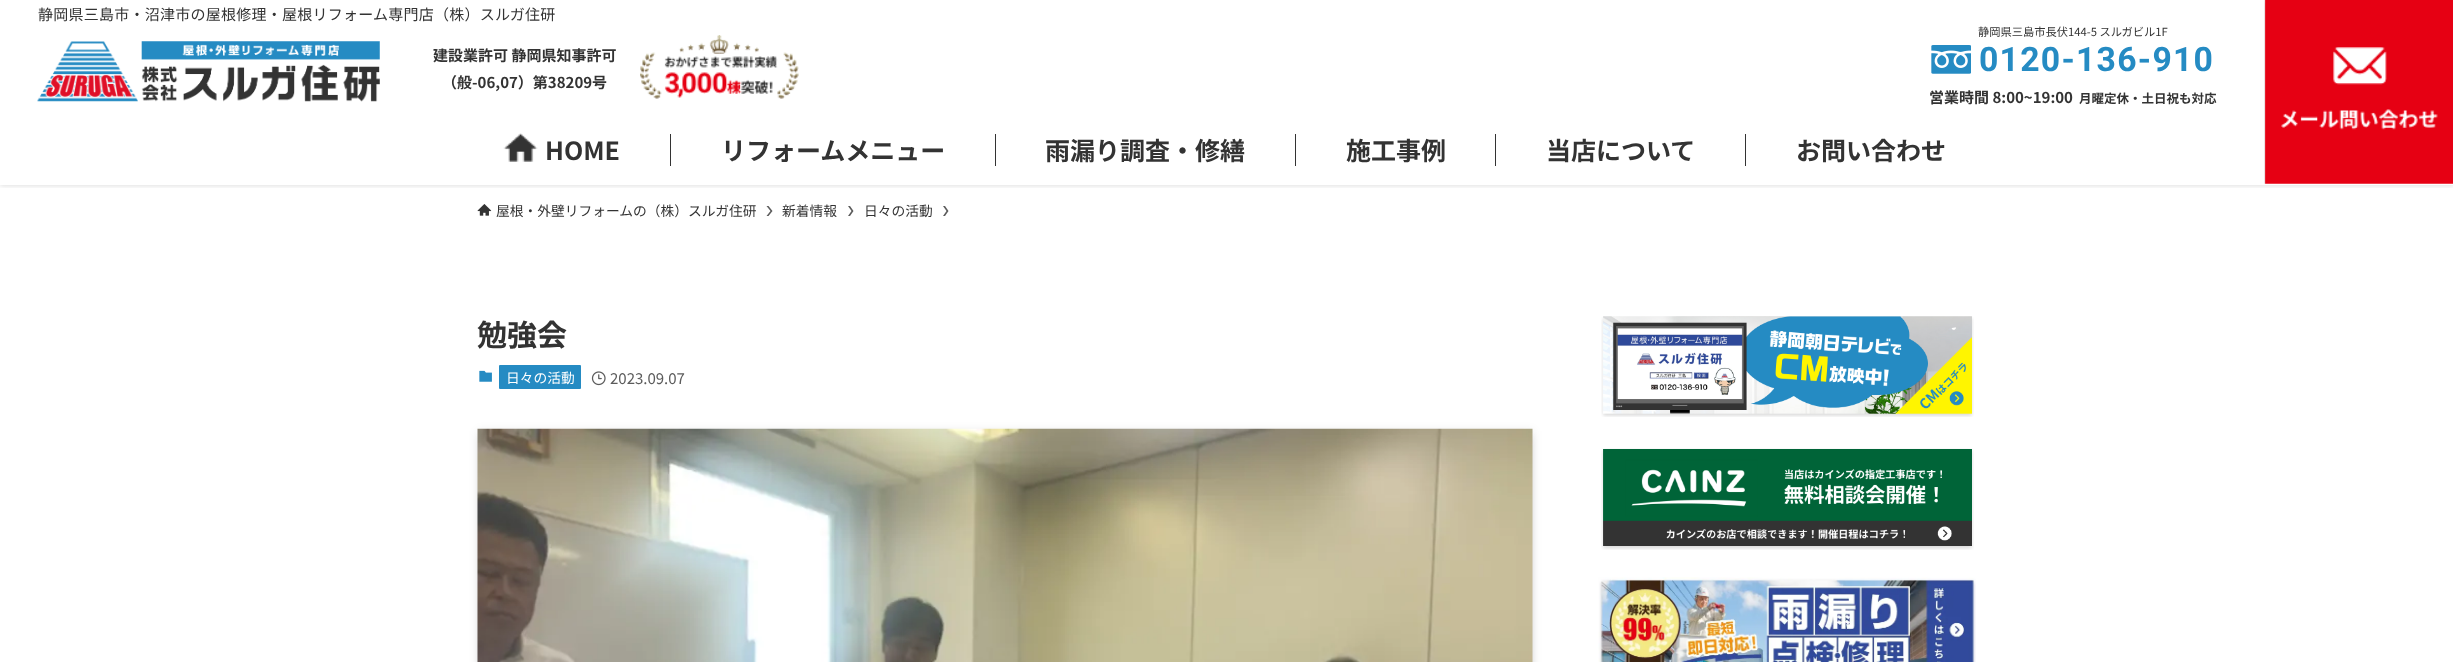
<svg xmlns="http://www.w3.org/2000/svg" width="2453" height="662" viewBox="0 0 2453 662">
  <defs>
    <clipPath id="clip1"><rect x="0" y="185" width="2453" height="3"/></clipPath>
  </defs>
  <rect width="100%" height="100%" fill="rgb(255,255,255)"/>
  <g clip-path="url(#clip1)">
    <rect x="0" y="1" width="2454" height="185" fill="rgba(0,0,0,0.12)" filter="blur(2.5px)"/>
  </g>
  <text x="38" y="20" font-family="Noto Sans JP" font-size="15" letter-spacing="0.25" fill="rgb(51,51,51)">静岡県三島市・沼津市の屋根修理・屋根リフォーム専門店（株）スルガ住研</text>
  <image x="37" y="41" width="343" height="61" href="pic1.png"/>
  <g font-family="Noto Sans JP" font-size="15" font-weight="bold" fill="rgb(51,51,51)">
    <text x="433" y="61">建設業許可 静岡県知事許可</text>
    <text x="442" y="88">（般-06,07）第38209号</text>
  </g>
  <image x="640" y="35" width="159" height="64" href="pic2.png"/>
  <text x="1978" y="36" font-family="Noto Sans JP" font-size="11.25" fill="rgb(51,51,51)">静岡県三島市⾧伏144-5 スルガビル1F</text>
  <image x="1931" y="45" width="40" height="29" href="pic3.png"/>
  <text x="1979" y="71" font-family="Roboto" font-size="33.75" font-weight="bold" letter-spacing="1.25" fill="rgb(37,139,195)">0120-136-910</text>
  <text x="1929" y="103" font-family="Noto Sans JP" font-size="15" font-weight="bold" fill="rgb(51,51,51)">営業時間 8:00~19:00</text>
  <text x="2079" y="103" font-family="Noto Sans JP" font-size="12.5" font-weight="bold" fill="rgb(51,51,51)">月曜定休・土日祝も対応</text>
  <image x="2264" y="0" width="189" height="184" href="pic4.png"/>
  <image x="503" y="133" width="35" height="29" href="pic5.png"/>
  <text x="545" y="160" font-family="Noto Sans JP" font-size="25" font-weight="bold" fill="rgb(51,51,51)">HOME</text>
  <rect x="670" y="134" width="1" height="32" fill="rgb(51,51,51)"/>
  <text x="721" y="160" font-family="Noto Sans JP" font-size="25" font-weight="bold" fill="rgb(51,51,51)">リフォームメニュー</text>
  <rect x="995" y="134" width="1" height="32" fill="rgb(51,51,51)"/>
  <text x="1045" y="160" font-family="Noto Sans JP" font-size="25" font-weight="bold" fill="rgb(51,51,51)">雨漏り調査・修繕</text>
  <rect x="1295" y="134" width="1" height="32" fill="rgb(51,51,51)"/>
  <text x="1346" y="160" font-family="Noto Sans JP" font-size="25" font-weight="bold" fill="rgb(51,51,51)">施工事例</text>
  <rect x="1495" y="134" width="1" height="32" fill="rgb(51,51,51)"/>
  <text x="1546" y="160" font-family="Noto Sans JP" font-size="25" font-weight="bold" fill="rgb(51,51,51)">当店について</text>
  <rect x="1745" y="134" width="1" height="32" fill="rgb(51,51,51)"/>
  <text x="1796" y="160" font-family="Noto Sans JP" font-size="25" font-weight="bold" fill="rgb(51,51,51)">お問い合わせ</text>
  <image x="477" y="204" width="15" height="12" href="pic6.png"/>
  <text x="496" y="216" font-family="Noto Sans JP" font-size="13.75" fill="rgb(51,51,51)">屋根・外壁リフォームの（株）スルガ住研</text>
  <path d="M768.5 206H766.5L770.5 211L766.5 216H768.5L772.5 211Z" fill="rgb(92,92,92)"/>
  <text x="782" y="216" font-family="Noto Sans JP" font-size="13.75" fill="rgb(51,51,51)">新着情報</text>
  <path d="M850 206H848L851.5 211L848 216H850L853.5 211Z" fill="rgb(92,92,92)"/>
  <text x="864" y="216" font-family="Noto Sans JP" font-size="13.75" fill="rgb(51,51,51)">日々の活動</text>
  <path d="M945 206H943L946.5 211L943 216H945L948.5 211Z" fill="rgb(92,92,92)"/>
  <text x="477" y="346" font-family="Noto Sans JP" font-size="30" font-weight="bold" fill="rgb(51,51,51)">勉強会</text>
  <image x="479" y="370" width="13" height="12" href="pic7.png"/>
  <rect x="499" y="365" width="82" height="24" rx="1" fill="rgb(37,139,195)"/>
  <text x="506" y="383" font-family="Noto Sans JP" font-size="13.75" fill="rgb(255,255,255)">日々の活動</text>
  <image x="591" y="371" width="15" height="15" href="pic8.png"/>
  <text x="610" y="384" font-family="Noto Sans JP" font-size="15" fill="rgb(92,92,92)">2023.09.07</text>
  <rect x="483" y="439" width="1045" height="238" fill="rgba(0,0,0,0.2)" filter="blur(5px)"/>
  <rect x="478" y="431" width="1055" height="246" fill="rgba(0,0,0,0.1)" filter="blur(5px)"/>
  <image x="477" y="428" width="1056" height="234" href="pic9.png"/>
  <image x="1601" y="316" width="373" height="101" href="pic10.png"/>
  <image x="1601" y="448" width="373" height="102" href="pic11.png"/>
  <image x="1598" y="577" width="378" height="85" href="pic12.png"/>
</svg>
